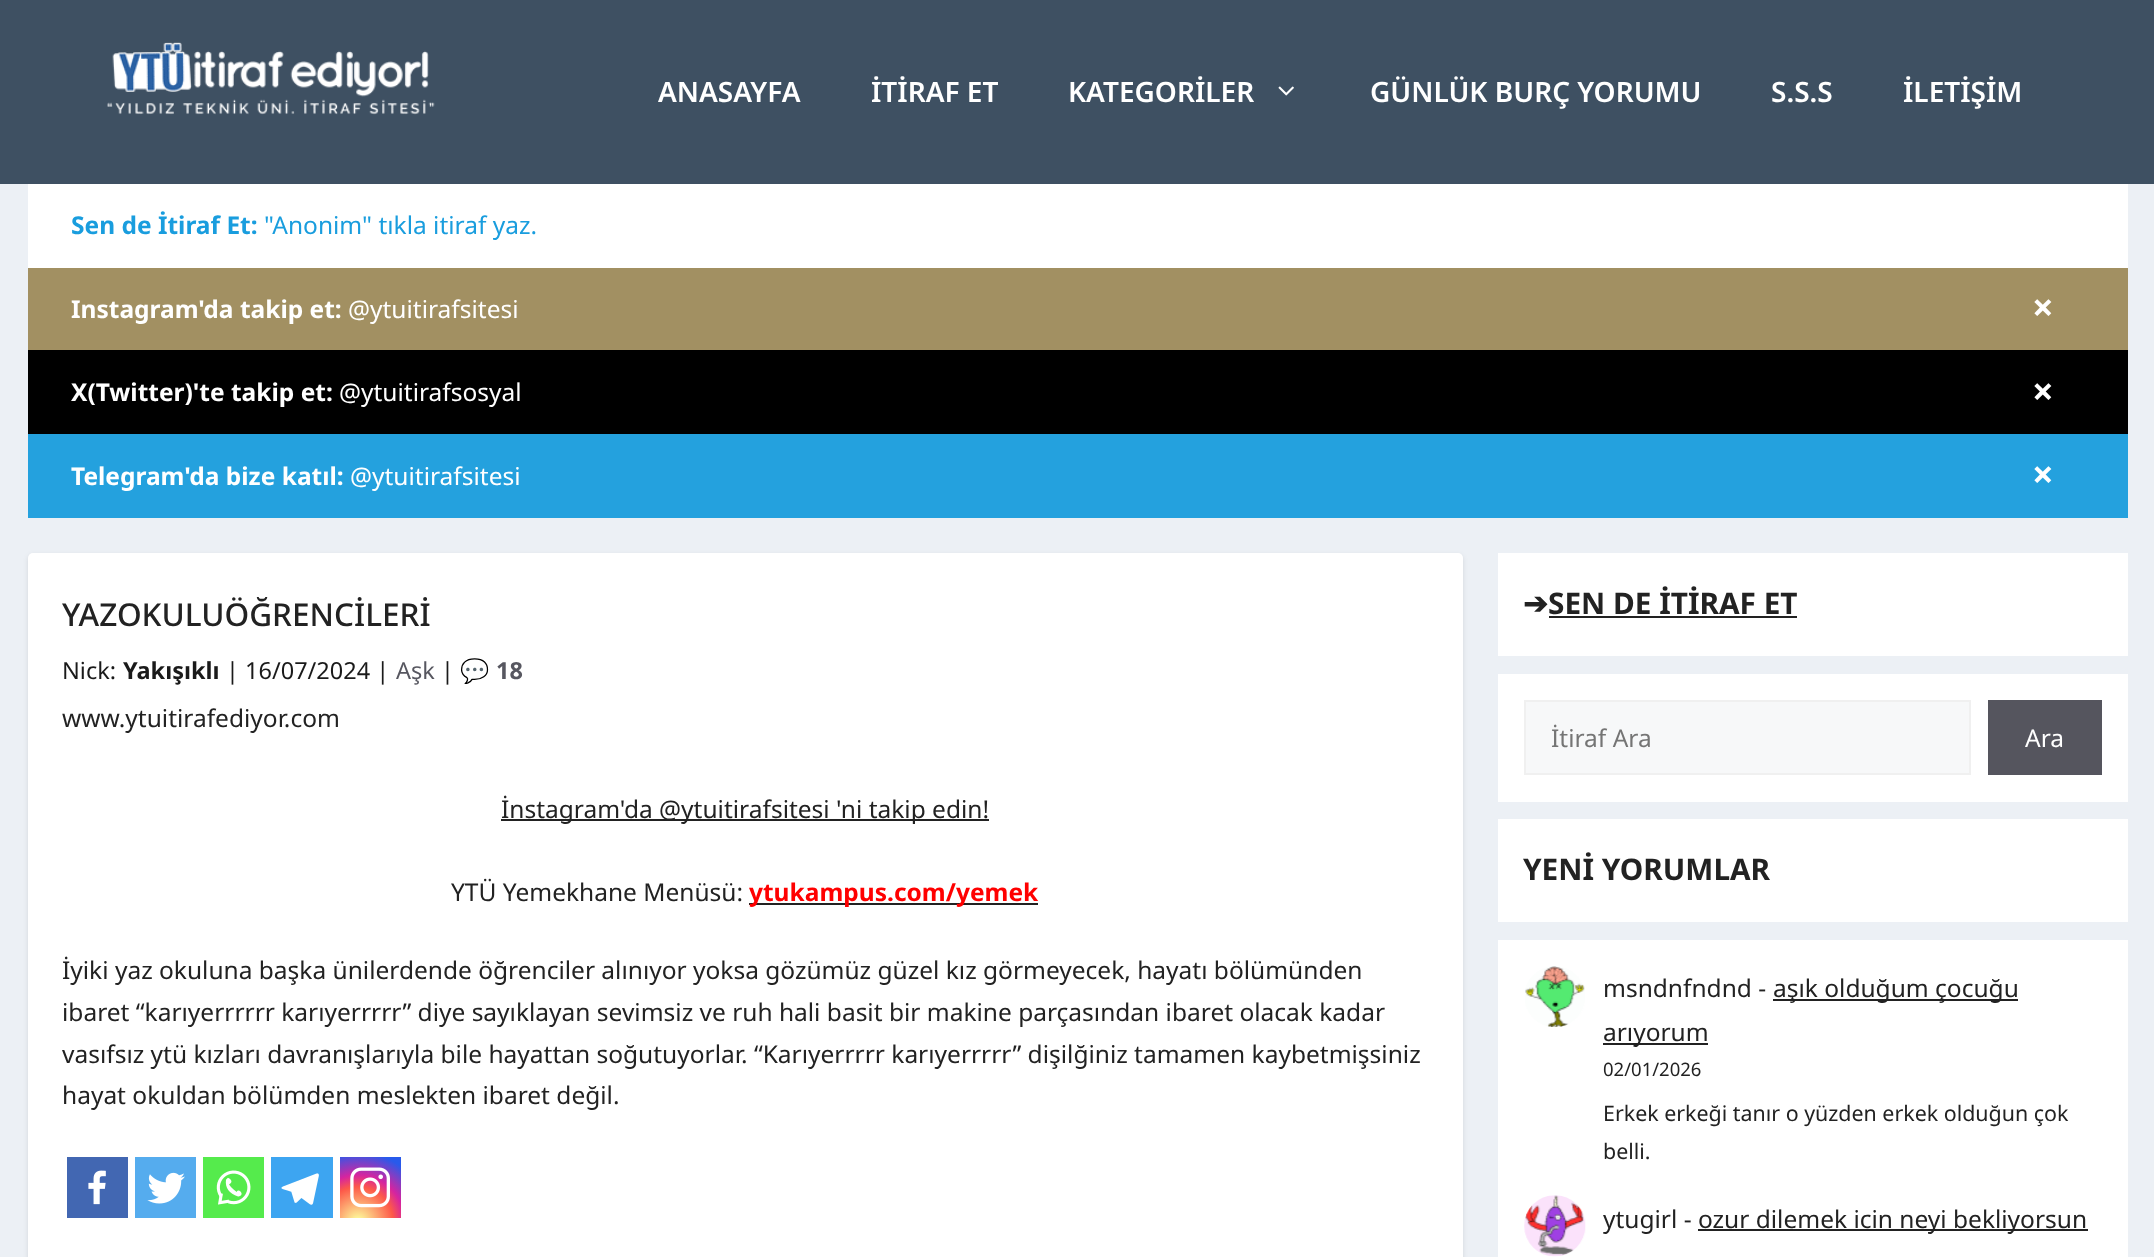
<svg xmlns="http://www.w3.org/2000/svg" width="2154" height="1257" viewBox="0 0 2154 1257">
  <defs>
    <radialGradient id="g1" gradientUnits="userSpaceOnUse" cx="358" cy="1222" r="78"><stop offset="0" stop-color="rgb(253,244,151)"/><stop offset="0.05" stop-color="rgb(253,244,151)"/><stop offset="0.45" stop-color="rgb(253,89,73)"/><stop offset="0.6" stop-color="rgb(214,36,159)"/><stop offset="0.9" stop-color="rgb(40,90,235)"/></radialGradient>
  </defs>
  <rect width="100%" height="100%" fill="rgb(236,240,245)"/>
  <rect x="0" y="0" width="2154" height="184" fill="rgb(62,80,98)"/>
  <image x="107" y="42" width="328" height="73" href="pic1.png"/>
  <g font-family="Noto Sans" font-size="28" font-weight="600" fill="rgb(255,255,255)">
    <text x="658" y="102">ANASAYFA</text>
    <text x="871" y="102">İTİRAF ET</text>
    <text x="1068" y="102">KATEGORİLER</text>
  </g>
  <image x="1278" y="86" width="16" height="10" href="pic2.png"/>
  <g font-family="Noto Sans" font-size="28" font-weight="600" fill="rgb(255,255,255)">
    <text x="1370" y="102">GÜNLÜK BURÇ YORUMU</text>
    <text x="1771" y="102">S.S.S</text>
    <text x="1903" y="102">İLETİŞİM</text>
  </g>
  <rect x="28" y="184" width="2100" height="84" fill="rgb(255,255,255)"/>
  <text x="71" y="234" font-family="Noto Sans" font-size="24.5" font-weight="bold" fill="rgb(25,157,222)">Sen de İtiraf Et:</text>
  <text x="264" y="234" font-family="Noto Sans" font-size="24.5" fill="rgb(25,157,222)">"Anonim" tıkla itiraf yaz.</text>
  <rect x="28" y="268" width="2100" height="82" fill="rgb(162,144,98)"/>
  <text x="71" y="318" font-family="Noto Sans" font-size="24.5" font-weight="bold" fill="rgb(255,255,255)">Instagram'da takip et:</text>
  <text x="348" y="318" font-family="Noto Sans" font-size="24.5" fill="rgb(255,255,255)">@ytuitirafsitesi</text>
  <text x="2032" y="321" font-family="Noto Sans" font-size="38" font-weight="bold" fill="rgb(255,255,255)">×</text>
  <rect x="28" y="350" width="2100" height="84" fill="rgb(0,0,0)"/>
  <text x="71" y="401" font-family="Noto Sans" font-size="24.5" font-weight="bold" fill="rgb(255,255,255)">X(Twitter)'te takip et:</text>
  <text x="339" y="401" font-family="Noto Sans" font-size="24.5" fill="rgb(255,255,255)">@ytuitirafsosyal</text>
  <text x="2032" y="405" font-family="Noto Sans" font-size="38" font-weight="bold" fill="rgb(255,255,255)">×</text>
  <rect x="28" y="434" width="2100" height="84" fill="rgb(36,161,222)"/>
  <text x="71" y="485" font-family="Noto Sans" font-size="24.5" font-weight="bold" fill="rgb(255,255,255)">Telegram'da bize katıl:</text>
  <text x="350" y="485" font-family="Noto Sans" font-size="24.5" fill="rgb(255,255,255)">@ytuitirafsitesi</text>
  <text x="2032" y="488" font-family="Noto Sans" font-size="38" font-weight="bold" fill="rgb(255,255,255)">×</text>
  <rect x="28" y="555" width="1435" height="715" rx="5" fill="rgba(0,0,0,0.1)" filter="blur(2.5px)"/>
  <rect x="28" y="553" width="1435" height="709" rx="5" fill="rgb(255,255,255)"/>
  <text x="62" y="626" font-family="Noto Sans" font-size="31.5" font-weight="500" fill="rgb(34,34,34)">YAZOKULUÖĞRENCİLERİ</text>
  <text x="62" y="679" font-family="Noto Sans" font-size="23.5" fill="rgb(26,26,26)">Nick:</text>
  <text x="123" y="679" font-family="Noto Sans" font-size="23.5" font-weight="bold" fill="rgb(26,26,26)">Yakışıklı</text>
  <text x="226" y="679" font-family="Noto Sans" font-size="23.5" fill="rgb(26,26,26)">| 16/07/2024 |</text>
  <text x="396" y="679" font-family="Noto Sans" font-size="23.5" fill="rgb(87,87,96)">Aşk</text>
  <text x="441" y="679" font-family="Noto Sans" font-size="23.5" fill="rgb(26,26,26)">|</text>
  <text x="460" y="679" font-family="Noto Color Emoji" font-size="23.5" fill="rgb(87,87,96)">💬</text>
  <text x="496" y="679" font-family="Noto Sans" font-size="23.5" font-weight="bold" fill="rgb(87,87,96)">18</text>
  <text x="62" y="727" font-family="Noto Sans" font-size="24.5" fill="rgb(34,34,34)">www.ytuitirafediyor.com</text>
  <rect x="501" y="819" width="488" height="2" fill="rgb(34,34,34)"/>
  <g font-family="Noto Sans" font-size="24.5" fill="rgb(34,34,34)">
    <text x="501" y="818">İnstagram'da @ytuitirafsitesi 'ni takip edin!</text>
    <text x="451" y="901">YTÜ Yemekhane Menüsü:</text>
  </g>
  <rect x="749" y="903" width="289" height="2" fill="rgb(34,34,34)"/>
  <text x="749" y="901" font-family="Noto Sans" font-size="24.5" font-weight="bold" fill="rgb(255,0,0)">ytukampus.com/yemek</text>
  <g font-family="Noto Sans" font-size="24.5" fill="rgb(34,34,34)">
    <text>
      <tspan x="62" y="979">İyiki yaz okuluna başka ünilerdende öğrenciler alınıyor yoksa gözümüz güzel kız görmeyecek, hayatı bölümünden</tspan>
      <tspan x="62" y="1021">ibaret “karıyerrrrrr karıyerrrrr” diye sayıklayan sevimsiz ve ruh hali basit bir makine parçasından ibaret olacak kadar</tspan>
      <tspan x="62" y="1063">vasıfsız ytü kızları davranışlarıyla bile hayattan soğutuyorlar. “Karıyerrrrr karıyerrrrr” dişilğiniz tamamen kaybetmişsiniz</tspan>
      <tspan x="62" y="1104">hayat okuldan bölümden meslekten ibaret değil.</tspan>
    </text>
  </g>
  <rect x="67" y="1157" width="61" height="61" fill="rgb(66,103,178)"/>
  <image x="88" y="1170" width="18" height="35" href="pic3.png"/>
  <rect x="135" y="1157" width="61" height="61" fill="rgb(85,172,238)"/>
  <image x="147" y="1172" width="38" height="32" href="pic4.png"/>
  <rect x="203" y="1157" width="61" height="61" fill="rgb(85,235,76)"/>
  <image x="216" y="1170" width="35" height="35" href="pic5.png"/>
  <rect x="271" y="1157" width="62" height="61" fill="rgb(61,165,241)"/>
  <image x="281" y="1173" width="38" height="32" href="pic6.png"/>
  <rect x="340" y="1157" width="61" height="61" fill="url(#g1)"/>
  <image x="350" y="1167" width="40" height="41" href="pic7.png"/>
  <rect x="1498" y="553" width="630" height="103" fill="rgb(255,255,255)"/>
  <text x="1523" y="614" font-family="DejaVu Sans" font-size="29.75" font-weight="bold" fill="rgb(34,34,34)">➔</text>
  <text x="1548" y="614" font-family="Noto Sans" font-size="29.75" font-weight="bold" fill="rgb(34,34,34)">SEN DE İTİRAF ET</text>
  <rect x="1549" y="616" width="248" height="2" fill="rgb(34,34,34)"/>
  <rect x="1498" y="674" width="630" height="128" fill="rgb(255,255,255)"/>
  <rect x="1525" y="701" width="445" height="73" fill="rgb(247,248,249)" stroke="rgb(240,240,240)" stroke-width="2"/>
  <text x="1551" y="747" font-family="Noto Sans" font-size="24.5" fill="rgb(117,117,117)">İtiraf Ara</text>
  <rect x="1988" y="700" width="114" height="75" fill="rgb(85,85,94)"/>
  <text x="2025" y="747" font-family="Noto Sans" font-size="24.5" fill="rgb(255,255,255)">Ara</text>
  <rect x="1498" y="819" width="630" height="103" fill="rgb(255,255,255)"/>
  <text x="1523" y="880" font-family="Noto Sans" font-size="29.75" font-weight="bold" fill="rgb(34,34,34)">YENİ YORUMLAR</text>
  <rect x="1498" y="940" width="630" height="317" fill="rgb(255,255,255)"/>
  <image x="1525" y="966" width="60" height="61" href="pic8.png"/>
  <text x="1603" y="997" font-family="Noto Sans" font-size="24.5" fill="rgb(34,34,34)">msndnfndnd -</text>
  <rect x="1773" y="999" width="245" height="2" fill="rgb(34,34,34)"/>
  <text x="1773" y="997" font-family="Noto Sans" font-size="24.5" fill="rgb(34,34,34)">aşık olduğum çocuğu</text>
  <rect x="1603" y="1043" width="105" height="2" fill="rgb(34,34,34)"/>
  <text x="1603" y="1041" font-family="Noto Sans" font-size="24.5" fill="rgb(34,34,34)">arıyorum</text>
  <text x="1603" y="1076" font-family="Noto Sans" font-size="18.5" fill="rgb(34,34,34)">02/01/2026</text>
  <g font-family="Noto Sans" font-size="21.4" fill="rgb(34,34,34)">
    <text>
      <tspan x="1603" y="1121">Erkek erkeği tanır o yüzden erkek olduğun çok</tspan>
      <tspan x="1603" y="1159">belli.</tspan>
    </text>
  </g>
  <image x="1524" y="1195" width="62" height="62" href="pic9.png"/>
  <text x="1603" y="1228" font-family="Noto Sans" font-size="24.5" fill="rgb(34,34,34)">ytugirl -</text>
  <rect x="1698" y="1229" width="390" height="2" fill="rgb(34,34,34)"/>
  <text x="1698" y="1228" font-family="Noto Sans" font-size="24.5" fill="rgb(34,34,34)">ozur dilemek icin neyi bekliyorsun</text>
</svg>
